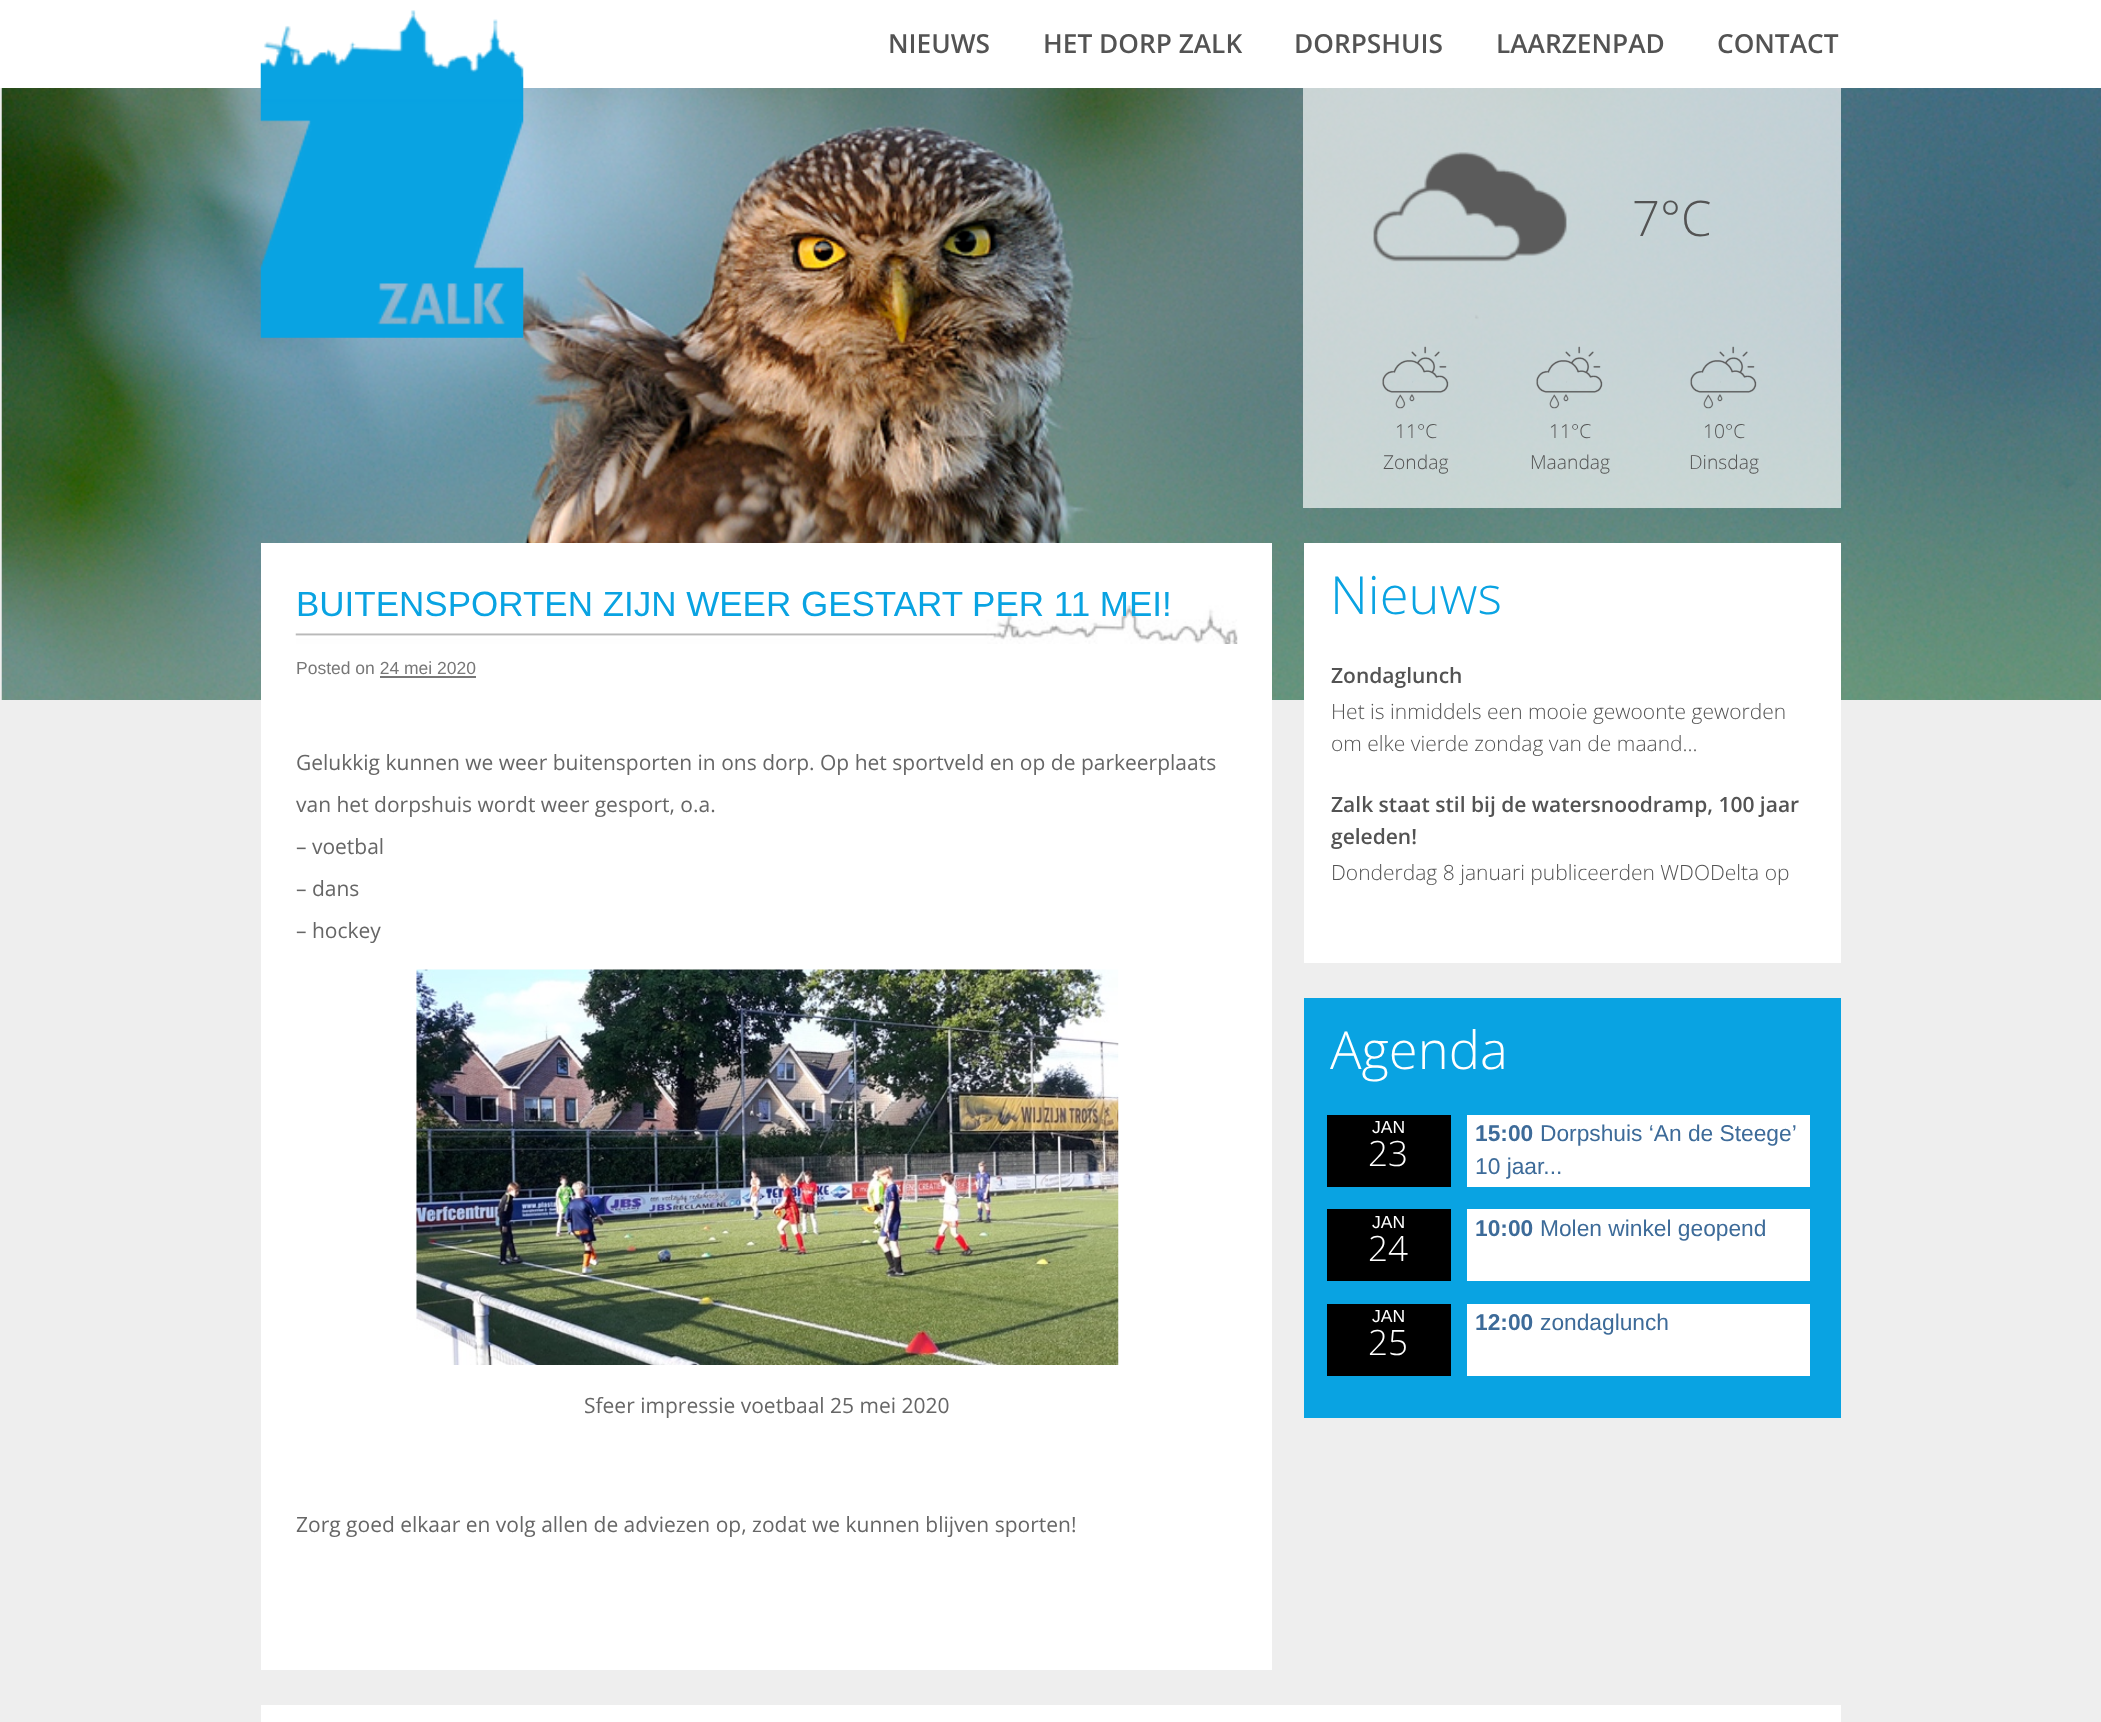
<svg xmlns="http://www.w3.org/2000/svg" width="2101" height="1722" viewBox="0 0 2101 1722">
  <rect width="100%" height="100%" fill="rgb(238,238,238)"/>
  <image x="1" y="88" width="2100" height="612" href="pic1.png"/>
  <rect x="0" y="0" width="2101" height="88" fill="rgb(255,255,255)"/>
  <image x="260" y="10" width="264" height="328" href="pic2.png"/>
  <g font-family="Open Sans" font-size="26.25" font-weight="600" fill="rgb(83,83,83)">
    <text x="888" y="53">NIEUWS</text>
    <text x="1043" y="53">HET DORP ZALK</text>
    <text x="1294" y="53">DORPSHUIS</text>
    <text x="1496" y="53">LAARZENPAD</text>
    <text x="1717" y="53">CONTACT</text>
  </g>
  <rect x="261" y="543" width="1011" height="1127" fill="rgb(255,255,255)"/>
  <image x="295" y="605" width="943" height="39" href="pic3.png"/>
  <text x="296" y="616" font-family="Liberation Sans" font-size="35" fill="rgb(9,163,226)">BUITENSPORTEN ZIJN WEER GESTART PER 11 MEI!</text>
  <text x="296" y="674" font-family="Liberation Sans" font-size="17.5" fill="rgb(119,119,119)">Posted on 24 mei 2020</text>
  <rect x="380" y="676" width="96" height="2" fill="rgb(119,119,119)"/>
  <g font-family="Open Sans" font-size="21" fill="rgb(102,102,102)">
    <text x="296" y="770">Gelukkig kunnen we weer buitensporten in ons dorp. Op het sportveld en op de parkeerplaats</text>
    <text x="296" y="812">van het dorpshuis wordt weer gesport, o.a.</text>
    <text x="296" y="854">– voetbal</text>
    <text x="296" y="896">– dans</text>
    <text x="296" y="938">– hockey</text>
  </g>
  <image x="416" y="969" width="703" height="396" href="pic4.png"/>
  <g font-family="Open Sans" font-size="21" fill="rgb(102,102,102)">
    <text x="584" y="1413">Sfeer impressie voetbaal 25 mei 2020</text>
    <text x="296" y="1532">Zorg goed elkaar en volg allen de adviezen op, zodat we kunnen blijven sporten!</text>
  </g>
  <rect x="1303" y="88" width="538" height="420" fill="rgba(255,255,255,0.67)"/>
  <image x="1373" y="152" width="194" height="167" href="pic5.png"/>
  <text x="1632" y="236" font-family="Open Sans" font-size="49" font-weight="300" fill="rgb(83,83,83)">7°C</text>
  <image x="1382" y="346" width="67" height="63" href="pic6.png"/>
  <g font-family="Open Sans" font-size="19.25" font-weight="300" fill="rgb(83,83,83)">
    <text x="1395" y="438">11°C</text>
    <text x="1383" y="469">Zondag</text>
  </g>
  <image x="1536" y="346" width="67" height="63" href="pic7.png"/>
  <g font-family="Open Sans" font-size="19.25" font-weight="300" fill="rgb(83,83,83)">
    <text x="1549" y="438">11°C</text>
    <text x="1530" y="469">Maandag</text>
  </g>
  <image x="1690" y="346" width="67" height="63" href="pic8.png"/>
  <g font-family="Open Sans" font-size="19.25" font-weight="300" fill="rgb(83,83,83)">
    <text x="1703" y="438">10°C</text>
    <text x="1689" y="469">Dinsdag</text>
  </g>
  <rect x="1304" y="543" width="537" height="420" fill="rgb(255,255,255)"/>
  <text x="1330" y="614" font-family="Open Sans" font-size="52.5" font-weight="300" fill="rgb(9,163,226)">Nieuws</text>
  <text x="1331" y="683" font-family="Open Sans" font-size="21" font-weight="600" fill="rgb(83,83,83)">Zondaglunch</text>
  <g font-family="Open Sans" font-size="21" font-weight="300" fill="rgb(83,83,83)">
    <text>
      <tspan x="1331" y="719">Het is inmiddels een mooie gewoonte geworden</tspan>
      <tspan x="1331" y="751">om elke vierde zondag van de maand...</tspan>
    </text>
  </g>
  <g font-family="Open Sans" font-size="21" font-weight="600" fill="rgb(83,83,83)">
    <text>
      <tspan x="1331" y="812">Zalk staat stil bij de watersnoodramp, 100 jaar</tspan>
      <tspan x="1331" y="844">geleden!</tspan>
    </text>
  </g>
  <text x="1331" y="880" font-family="Open Sans" font-size="21" font-weight="300" fill="rgb(83,83,83)">Donderdag 8 januari publiceerden WDODelta op</text>
  <rect x="1304" y="998" width="537" height="420" fill="rgb(9,163,226)"/>
  <text x="1330" y="1069" font-family="Open Sans" font-size="52.5" font-weight="300" fill="rgb(255,255,255)">Agenda</text>
  <rect x="1327" y="1115" width="124" height="72" fill="rgb(0,0,0)"/>
  <text x="1372" y="1133" font-family="Liberation Sans" font-size="17.5" fill="rgb(255,255,255)">JAN</text>
  <text x="1368" y="1166" font-family="Open Sans" font-size="35" font-weight="300" fill="rgb(255,255,255)">23</text>
  <rect x="1467" y="1115" width="343" height="72" fill="rgb(255,255,255)"/>
  <text x="1475" y="1141" font-family="Liberation Sans" font-size="22.75" font-weight="bold" fill="rgb(61,107,153)">15:00</text>
  <g font-family="Liberation Sans" font-size="22.75" fill="rgb(61,107,153)">
    <text x="1540" y="1141">Dorpshuis ‘An de Steege’</text>
    <text x="1475" y="1174">10 jaar...</text>
  </g>
  <rect x="1327" y="1209" width="124" height="72" fill="rgb(0,0,0)"/>
  <text x="1372" y="1228" font-family="Liberation Sans" font-size="17.5" fill="rgb(255,255,255)">JAN</text>
  <text x="1368" y="1261" font-family="Open Sans" font-size="35" font-weight="300" fill="rgb(255,255,255)">24</text>
  <rect x="1467" y="1209" width="343" height="72" fill="rgb(255,255,255)"/>
  <text x="1475" y="1236" font-family="Liberation Sans" font-size="22.75" font-weight="bold" fill="rgb(61,107,153)">10:00</text>
  <text x="1540" y="1236" font-family="Liberation Sans" font-size="22.75" fill="rgb(61,107,153)">Molen winkel geopend</text>
  <rect x="1327" y="1304" width="124" height="72" fill="rgb(0,0,0)"/>
  <text x="1372" y="1322" font-family="Liberation Sans" font-size="17.5" fill="rgb(255,255,255)">JAN</text>
  <text x="1368" y="1355" font-family="Open Sans" font-size="35" font-weight="300" fill="rgb(255,255,255)">25</text>
  <rect x="1467" y="1304" width="343" height="72" fill="rgb(255,255,255)"/>
  <text x="1475" y="1330" font-family="Liberation Sans" font-size="22.75" font-weight="bold" fill="rgb(61,107,153)">12:00</text>
  <text x="1540" y="1330" font-family="Liberation Sans" font-size="22.75" fill="rgb(61,107,153)">zondaglunch</text>
  <rect x="261" y="1705" width="1580" height="17" fill="rgb(255,255,255)"/>
</svg>
